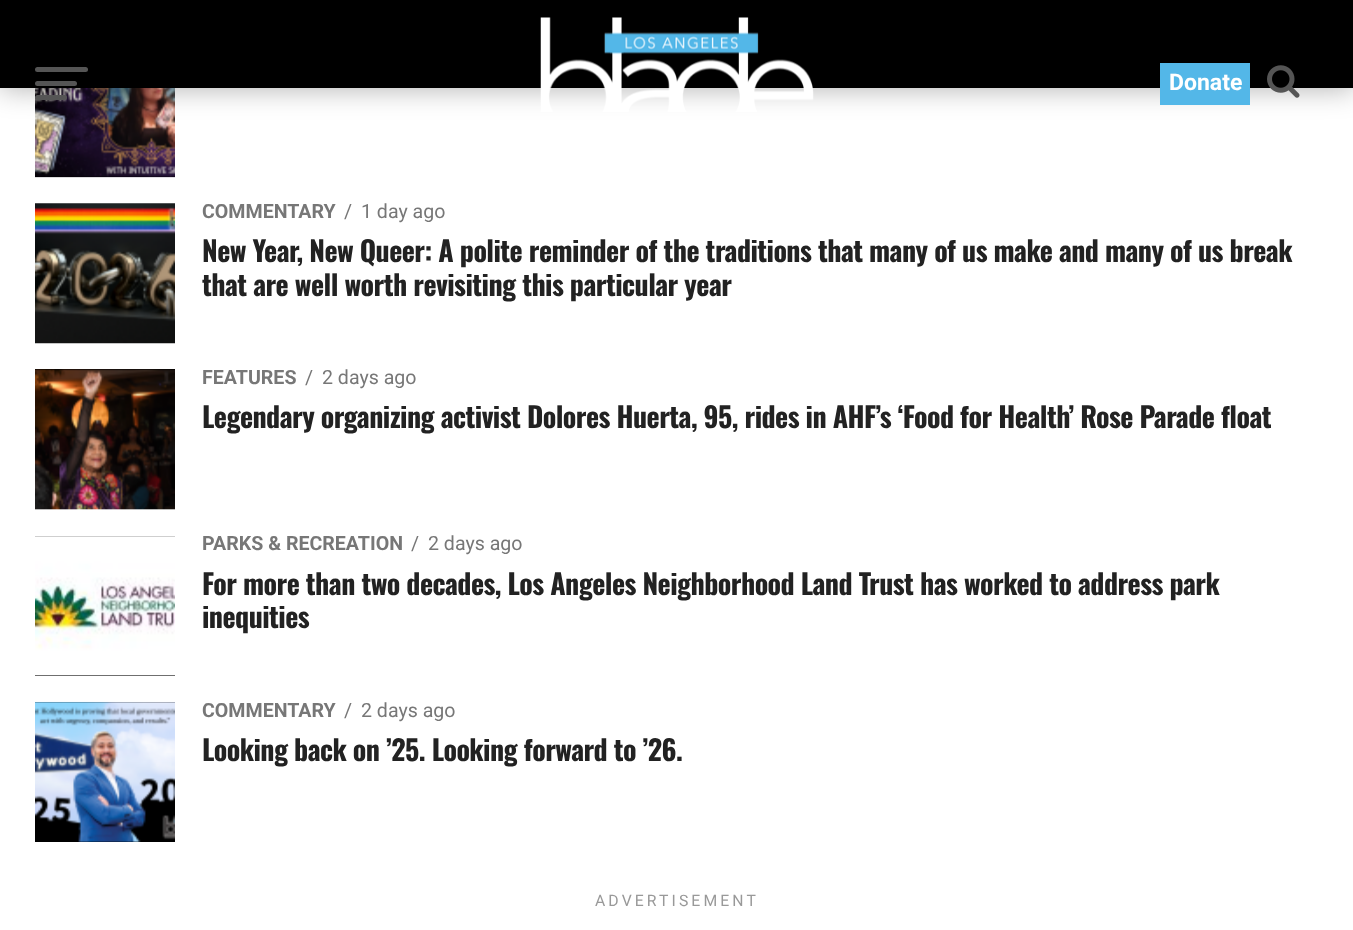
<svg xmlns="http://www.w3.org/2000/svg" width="1353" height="930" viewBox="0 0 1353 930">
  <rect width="100%" height="100%" fill="rgb(255,255,255)"/>
  <rect x="35" y="176" width="140" height="1" fill="rgb(0,0,0)"/>
  <image x="35" y="88" width="140" height="90" href="pic3.png"/>
  <rect x="0" y="2" width="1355" height="87" fill="rgba(0,0,0,0.3)" filter="blur(14px)"/>
  <rect x="0" y="0" width="1353" height="88" fill="rgb(0,0,0)"/>
  <rect x="35" y="67" width="53" height="5" rx="2.5" fill="rgb(85,85,85)"/>
  <rect x="35" y="81" width="42" height="5" rx="2.5" fill="rgb(85,85,85)"/>
  <rect x="35" y="95" width="32" height="5" rx="2.5" fill="rgb(85,85,85)"/>
  <image x="540" y="17" width="274" height="95" href="pic1.png"/>
  <rect x="1160" y="63" width="90" height="42" fill="rgb(83,183,232)"/>
  <text x="1169" y="90" font-family="Roboto" font-size="23" font-weight="bold" fill="rgb(255,255,255)">Donate</text>
  <image x="1267" y="65" width="33" height="33" href="pic2.png"/>
  <image x="35" y="203" width="140" height="141" href="pic4.png"/>
  <text x="202" y="218" font-family="Roboto" font-size="19.6" font-weight="bold" fill="rgb(119,119,119)">COMMENTARY</text>
  <g font-family="Roboto" font-size="19.6" fill="rgb(119,119,119)">
    <text x="344" y="218">/</text>
    <text x="361" y="218">1 day ago</text>
  </g>
  <g font-family="Oswald" font-size="28" font-weight="bold" letter-spacing="-0.56" fill="rgb(34,34,34)">
    <text>
      <tspan x="202" y="262">New Year, New Queer: A polite reminder of the traditions that many of us make and many of us break</tspan>
      <tspan x="202" y="296">that are well worth revisiting this particular year</tspan>
    </text>
  </g>
  <rect x="35" y="369" width="140" height="2" fill="rgb(0,0,0)"/>
  <image x="35" y="369" width="140" height="141" href="pic5.png"/>
  <text x="202" y="384" font-family="Roboto" font-size="19.6" font-weight="bold" fill="rgb(119,119,119)">FEATURES</text>
  <g font-family="Roboto" font-size="19.6" fill="rgb(119,119,119)">
    <text x="305" y="384">/</text>
    <text x="322" y="384">2 days ago</text>
  </g>
  <text x="202" y="428" font-family="Oswald" font-size="28" font-weight="bold" letter-spacing="-0.56" fill="rgb(34,34,34)">Legendary organizing activist Dolores Huerta, 95, rides in AHF’s ‘Food for Health’ Rose Parade float</text>
  <rect x="35" y="536" width="140" height="140" fill="rgb(0,0,0)"/>
  <image x="35" y="536" width="140" height="140" href="pic6.png"/>
  <text x="202" y="550" font-family="Roboto" font-size="19.6" font-weight="bold" fill="rgb(119,119,119)">PARKS &amp; RECREATION</text>
  <g font-family="Roboto" font-size="19.6" fill="rgb(119,119,119)">
    <text x="411" y="550">/</text>
    <text x="428" y="550">2 days ago</text>
  </g>
  <g font-family="Oswald" font-size="28" font-weight="bold" letter-spacing="-0.56" fill="rgb(34,34,34)">
    <text>
      <tspan x="202" y="595">For more than two decades, Los Angeles Neighborhood Land Trust has worked to address park</tspan>
      <tspan x="202" y="628">inequities</tspan>
    </text>
  </g>
  <rect x="35" y="702" width="140" height="140" fill="rgb(0,0,0)"/>
  <image x="35" y="701" width="140" height="141" href="pic7.png"/>
  <text x="202" y="717" font-family="Roboto" font-size="19.6" font-weight="bold" fill="rgb(119,119,119)">COMMENTARY</text>
  <g font-family="Roboto" font-size="19.6" fill="rgb(119,119,119)">
    <text x="344" y="717">/</text>
    <text x="361" y="717">2 days ago</text>
  </g>
  <text x="202" y="761" font-family="Oswald" font-size="28" font-weight="bold" letter-spacing="-0.56" fill="rgb(34,34,34)">Looking back on ’25. Looking forward to ’26.</text>
  <text x="595" y="906" font-family="Roboto" font-size="15.75" letter-spacing="3.1" fill="rgb(153,153,153)">ADVERTISEMENT</text>
</svg>
